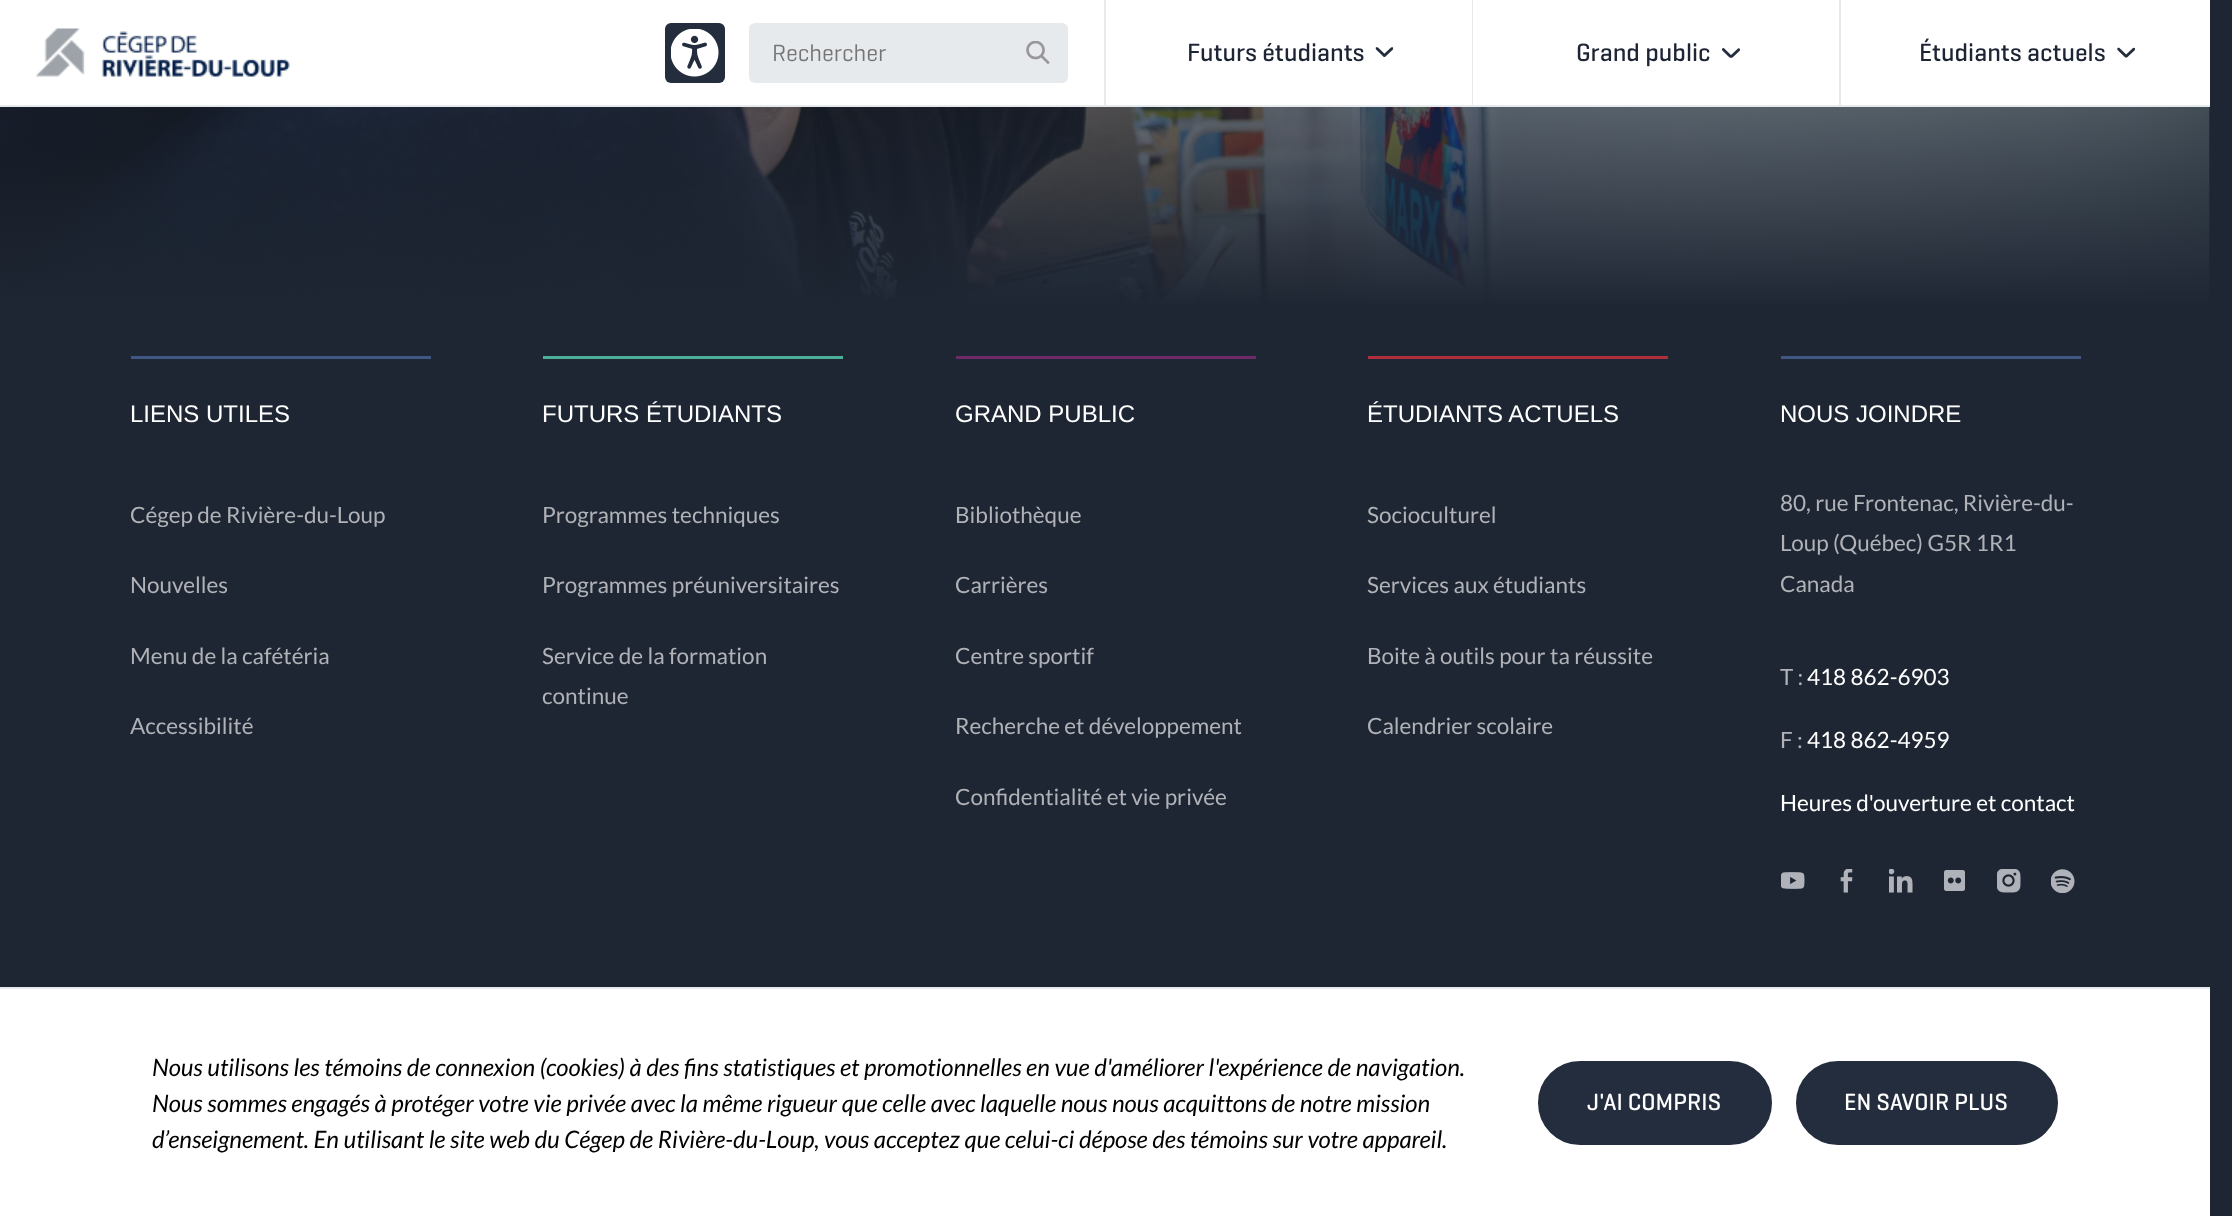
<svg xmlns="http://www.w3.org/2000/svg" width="2232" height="1216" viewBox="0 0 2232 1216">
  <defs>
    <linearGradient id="g1" gradientUnits="userSpaceOnUse" x1="1105" y1="-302" x2="1105" y2="308"><stop offset="0" stop-color="rgb(30,38,51)" stop-opacity="0"/><stop offset="1" stop-color="rgb(30,38,51)"/></linearGradient>
  </defs>
  <rect width="100%" height="100%" fill="rgb(30,38,51)"/>
  <rect x="0" y="105" width="2210" height="2" fill="rgb(231,234,237)"/>
  <rect x="0" y="0" width="1104" height="105" fill="rgb(255,255,255)"/>
  <rect x="1104" y="0" width="2" height="105" fill="rgb(231,234,237)"/>
  <image x="36" y="28" width="254" height="49" href="pic1.png"/>
  <rect x="665" y="23" width="60" height="60" rx="6" fill="rgb(36,45,61)"/>
  <image x="671" y="29" width="48" height="48" href="pic2.png"/>
  <rect x="749" y="23" width="319" height="60" rx="6" fill="rgb(231,234,237)"/>
  <text x="772" y="61" font-family="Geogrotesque" font-size="24" fill="rgb(117,117,117)">Rechercher</text>
  <image x="1026" y="41" width="24" height="24" href="pic3.png"/>
  <rect x="1106" y="0" width="366" height="105" fill="rgb(255,255,255)"/>
  <rect x="1472" y="0" width="1" height="105" fill="rgb(231,234,237)"/>
  <text x="1187" y="61" font-family="Geogrotesque" font-size="25.5" font-weight="500" fill="rgb(29,36,52)">Futurs étudiants</text>
  <image x="1375" y="47" width="19" height="10" href="pic4.png"/>
  <rect x="1473" y="0" width="366" height="105" fill="rgb(255,255,255)"/>
  <rect x="1839" y="0" width="2" height="105" fill="rgb(231,234,237)"/>
  <text x="1576" y="61" font-family="Geogrotesque" font-size="25.5" font-weight="500" fill="rgb(29,36,52)">Grand public</text>
  <image x="1722" y="48" width="18" height="10" href="pic5.png"/>
  <rect x="1841" y="0" width="369" height="105" fill="rgb(255,255,255)"/>
  <text x="1919" y="61" font-family="Geogrotesque" font-size="25.5" font-weight="500" fill="rgb(29,36,52)">Étudiants actuels</text>
  <image x="2117" y="47" width="18" height="11" href="pic6.png"/>
  <image x="0" y="107" width="2210" height="197" href="pic7.png"/>
  <rect x="0" y="107" width="2210" height="197" fill="url(#g1)"/>
  <rect x="131" y="356" width="300" height="3" fill="rgb(64,87,133)"/>
  <text x="130" y="422" font-family="Liberation Sans" font-size="24" fill="rgb(255,255,255)">LIENS UTILES</text>
  <g font-family="Lato" font-size="22.5" fill="rgb(176,178,183)">
    <text x="130" y="523">Cégep de Rivière-du-Loup</text>
    <text x="130" y="593">Nouvelles</text>
    <text x="130" y="664">Menu de la cafétéria</text>
    <text x="130" y="734">Accessibilité</text>
  </g>
  <rect x="543" y="356" width="300" height="3" fill="rgb(77,175,153)"/>
  <text x="542" y="422" font-family="Liberation Sans" font-size="24" fill="rgb(255,255,255)">FUTURS ÉTUDIANTS</text>
  <g font-family="Lato" font-size="22.5" fill="rgb(176,178,183)">
    <text x="542" y="523">Programmes techniques</text>
    <text x="542" y="593">Programmes préuniversitaires</text>
    <text>
      <tspan x="542" y="664">Service de la formation</tspan>
      <tspan x="542" y="704">continue</tspan>
    </text>
  </g>
  <rect x="956" y="356" width="300" height="3" fill="rgb(109,41,104)"/>
  <text x="955" y="422" font-family="Liberation Sans" font-size="24" fill="rgb(255,255,255)">GRAND PUBLIC</text>
  <g font-family="Lato" font-size="22.5" fill="rgb(176,178,183)">
    <text x="955" y="523">Bibliothèque</text>
    <text x="955" y="593">Carrières</text>
    <text x="955" y="664">Centre sportif</text>
    <text x="955" y="734">Recherche et développement</text>
    <text x="955" y="805">Confidentialité et vie privée</text>
  </g>
  <rect x="1368" y="356" width="300" height="3" fill="rgb(176,47,61)"/>
  <text x="1367" y="422" font-family="Liberation Sans" font-size="24" fill="rgb(255,255,255)">ÉTUDIANTS ACTUELS</text>
  <g font-family="Lato" font-size="22.5" fill="rgb(176,178,183)">
    <text x="1367" y="523">Socioculturel</text>
    <text x="1367" y="593">Services aux étudiants</text>
    <text x="1367" y="664">Boite à outils pour ta réussite</text>
    <text x="1367" y="734">Calendrier scolaire</text>
  </g>
  <rect x="1781" y="356" width="300" height="3" fill="rgb(64,87,133)"/>
  <text x="1780" y="422" font-family="Liberation Sans" font-size="24" fill="rgb(255,255,255)">NOUS JOINDRE</text>
  <g font-family="Lato" font-size="22.5" fill="rgb(176,178,183)">
    <text>
      <tspan x="1780" y="511">80, rue Frontenac, Rivière-du-</tspan>
      <tspan x="1780" y="551">Loup (Québec) G5R 1R1</tspan>
      <tspan x="1780" y="592">Canada</tspan>
    </text>
    <text x="1780" y="685">T :</text>
  </g>
  <text x="1807" y="685" font-family="Lato" font-size="22.5" fill="rgb(255,255,255)">418 862-6903</text>
  <text x="1780" y="748" font-family="Lato" font-size="22.5" fill="rgb(176,178,183)">F :</text>
  <g font-family="Lato" font-size="22.5" fill="rgb(255,255,255)">
    <text x="1807" y="748">418 862-4959</text>
    <text x="1780" y="811">Heures d'ouverture et contact</text>
  </g>
  <image x="1781" y="872" width="24" height="17" href="pic8.png"/>
  <image x="1840" y="869" width="13" height="24" href="pic9.png"/>
  <image x="1889" y="869" width="24" height="24" href="pic10.png"/>
  <image x="1944" y="870" width="21" height="21" href="pic11.png"/>
  <image x="1997" y="869" width="24" height="24" href="pic12.png"/>
  <image x="2051" y="869" width="24" height="24" href="pic13.png"/>
  <rect x="0" y="989" width="2210" height="227" fill="rgb(255,255,255)"/>
  <rect x="0" y="987" width="2210" height="2" fill="rgb(231,234,237)"/>
  <g font-family="Lato" font-size="24" font-style="italic" fill="rgb(0,0,0)">
    <text>
      <tspan x="152" y="1076">Nous utilisons les témoins de connexion (cookies) à des fins statistiques et promotionnelles en vue d'améliorer l'expérience de navigation.</tspan>
      <tspan x="152" y="1112">Nous sommes engagés à protéger votre vie privée avec la même rigueur que celle avec laquelle nous nous acquittons de notre mission</tspan>
      <tspan x="152" y="1148">d’enseignement. En utilisant le site web du Cégep de Rivière-du-Loup, vous acceptez que celui-ci dépose des témoins sur votre appareil.</tspan>
    </text>
  </g>
  <rect x="1539" y="1062" width="232" height="82" rx="41" fill="rgb(36,45,61)" stroke="rgb(36,45,61)" stroke-width="2"/>
  <text x="1587" y="1110" font-family="Geogrotesque" font-size="24" font-weight="500" fill="rgb(255,255,255)">J'AI COMPRIS</text>
  <rect x="1797" y="1062" width="260" height="82" rx="41" fill="rgb(36,45,61)" stroke="rgb(36,45,61)" stroke-width="2"/>
  <text x="1844" y="1110" font-family="Geogrotesque" font-size="24" font-weight="500" fill="rgb(255,255,255)">EN SAVOIR PLUS</text>
</svg>
